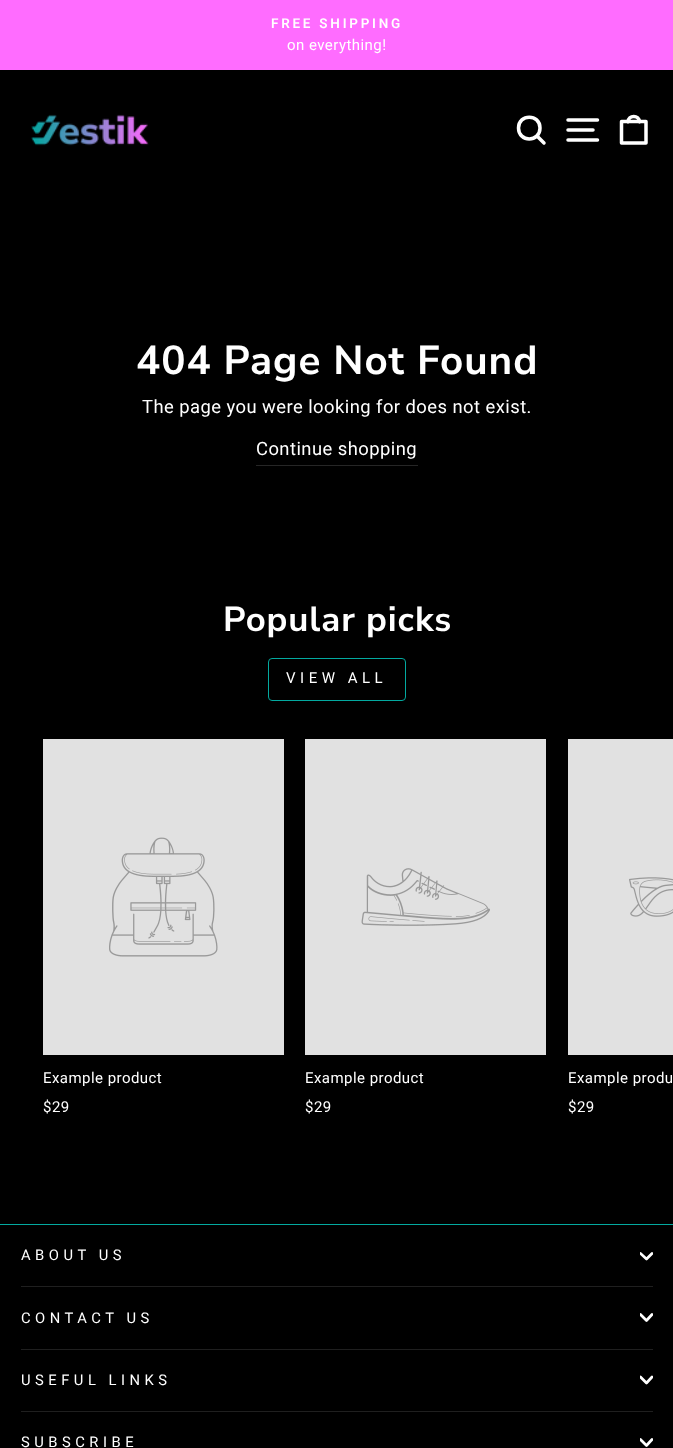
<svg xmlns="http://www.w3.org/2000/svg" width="673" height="1448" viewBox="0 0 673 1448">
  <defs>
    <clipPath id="clip1"><rect x="640" y="1250" width="13" height="13"/></clipPath>
    <clipPath id="clip2"><rect x="640" y="1311" width="13" height="13"/></clipPath>
    <clipPath id="clip3"><rect x="640" y="1374" width="13" height="12"/></clipPath>
    <clipPath id="clip4"><rect x="640" y="1436" width="13" height="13"/></clipPath>
  </defs>
  <rect width="100%" height="100%" fill="rgb(0,0,0)"/>
  <rect x="0" y="0" width="673" height="70" fill="rgb(255,108,255)"/>
  <text x="271" y="28" font-family="Roboto" font-size="13.5" font-weight="600" letter-spacing="2.75" fill="rgb(255,255,255)">FREE SHIPPING</text>
  <text x="287" y="50" font-family="Roboto" font-size="15" letter-spacing="0.45" fill="rgb(255,255,255)">on everything!</text>
  <image x="31" y="114" width="118" height="32" href="pic1.png"/>
  <path d="M540 128C540 142.5 518.5 142.5 518.5 128C518.5 113.5 540 113.5 540 128ZM544 143L537 136" fill="none" stroke="rgb(255,255,255)" stroke-width="3.5" stroke-linecap="round" stroke-linejoin="round"/>
  <path d="M568 120H597.5M568 130H593M568 140H597.5" fill="none" stroke="rgb(255,255,255)" stroke-width="3.5" stroke-linecap="round" stroke-linejoin="round"/>
  <path d="M621.5 121.5H646V143H621.5ZM628 122C628 114.5 639.5 114.5 639.5 122" fill="none" stroke="rgb(255,255,255)" stroke-width="3.5" stroke-linecap="round" stroke-linejoin="round"/>
  <text x="136" y="374" font-family="Nunito Sans" font-size="40.4" font-weight="bold" letter-spacing="1" fill="rgb(255,255,255)">404 Page Not Found</text>
  <text x="142" y="413" font-family="Roboto" font-size="18.4" letter-spacing="0.45" fill="rgb(255,255,255)">The page you were looking for does not exist.</text>
  <rect x="256" y="465" width="162" height="1" fill="rgb(38,38,38)"/>
  <text x="256" y="455" font-family="Roboto" font-size="18.4" letter-spacing="0.45" fill="rgb(255,255,255)">Continue shopping</text>
  <text x="223" y="631" font-family="Nunito Sans" font-size="34.75" font-weight="bold" letter-spacing="0.9" fill="rgb(255,255,255)">Popular picks</text>
  <rect x="268.5" y="658.5" width="137" height="42" rx="3.5" fill="none" stroke="rgb(3,169,159)"/>
  <text x="286" y="683" font-family="Roboto" font-size="15" letter-spacing="4.5" fill="rgb(255,255,255)">VIEW ALL</text>
  <rect x="43" y="739" width="241" height="316" fill="rgb(225,225,225)"/>
  <image x="109" y="837" width="109" height="120" href="pic2.png"/>
  <g font-family="Roboto" font-size="15" letter-spacing="0.45" fill="rgb(255,255,255)">
    <text>
      <tspan x="43" y="1083">Example product</tspan>
      <tspan x="43" y="1112">$29</tspan>
    </text>
  </g>
  <rect x="305" y="739" width="241" height="316" fill="rgb(225,225,225)"/>
  <image x="361" y="868" width="129" height="58" href="pic3.png"/>
  <g font-family="Roboto" font-size="15" letter-spacing="0.45" fill="rgb(255,255,255)">
    <text>
      <tspan x="305" y="1083">Example product</tspan>
      <tspan x="305" y="1112">$29</tspan>
    </text>
  </g>
  <rect x="568" y="739" width="105" height="316" fill="rgb(225,225,225)"/>
  <image x="629" y="877" width="44" height="40" href="pic4.png"/>
  <g font-family="Roboto" font-size="15" letter-spacing="0.45" fill="rgb(255,255,255)">
    <text>
      <tspan x="568" y="1083">Example produ</tspan>
      <tspan x="568" y="1112">$29</tspan>
    </text>
  </g>
  <rect x="0" y="1224" width="673" height="1" fill="rgb(3,169,159)"/>
  <text x="21" y="1260" font-family="Roboto" font-size="14.75" letter-spacing="4.5" fill="rgb(255,255,255)">ABOUT US</text>
  <g clip-path="url(#clip1)">
    <path d="M640.5 1253.5L646.5 1259L652 1253.5" fill="none" stroke="rgb(255,255,255)" stroke-width="2.7" stroke-linecap="round" stroke-linejoin="round"/>
  </g>
  <rect x="21" y="1286" width="632" height="1" fill="rgb(31,31,31)"/>
  <text x="21" y="1323" font-family="Roboto" font-size="14.75" letter-spacing="4.5" fill="rgb(255,255,255)">CONTACT US</text>
  <g clip-path="url(#clip2)">
    <path d="M640.5 1314.5L646.5 1320.5L652 1314.5" fill="none" stroke="rgb(255,255,255)" stroke-width="2.7" stroke-linecap="round" stroke-linejoin="round"/>
  </g>
  <rect x="21" y="1349" width="632" height="1" fill="rgb(31,31,31)"/>
  <text x="21" y="1385" font-family="Roboto" font-size="14.75" letter-spacing="4.5" fill="rgb(255,255,255)">USEFUL LINKS</text>
  <g clip-path="url(#clip3)">
    <path d="M640.5 1377L646.5 1383L652 1377" fill="none" stroke="rgb(255,255,255)" stroke-width="2.7" stroke-linecap="round" stroke-linejoin="round"/>
  </g>
  <rect x="21" y="1411" width="632" height="1" fill="rgb(31,31,31)"/>
  <text x="21" y="1447" font-family="Roboto" font-size="14.75" letter-spacing="4.5" fill="rgb(255,255,255)">SUBSCRIBE</text>
  <g clip-path="url(#clip4)">
    <path d="M640.5 1439.5L646.5 1445.5L652 1439.5" fill="none" stroke="rgb(255,255,255)" stroke-width="2.7" stroke-linecap="round" stroke-linejoin="round"/>
  </g>
</svg>
